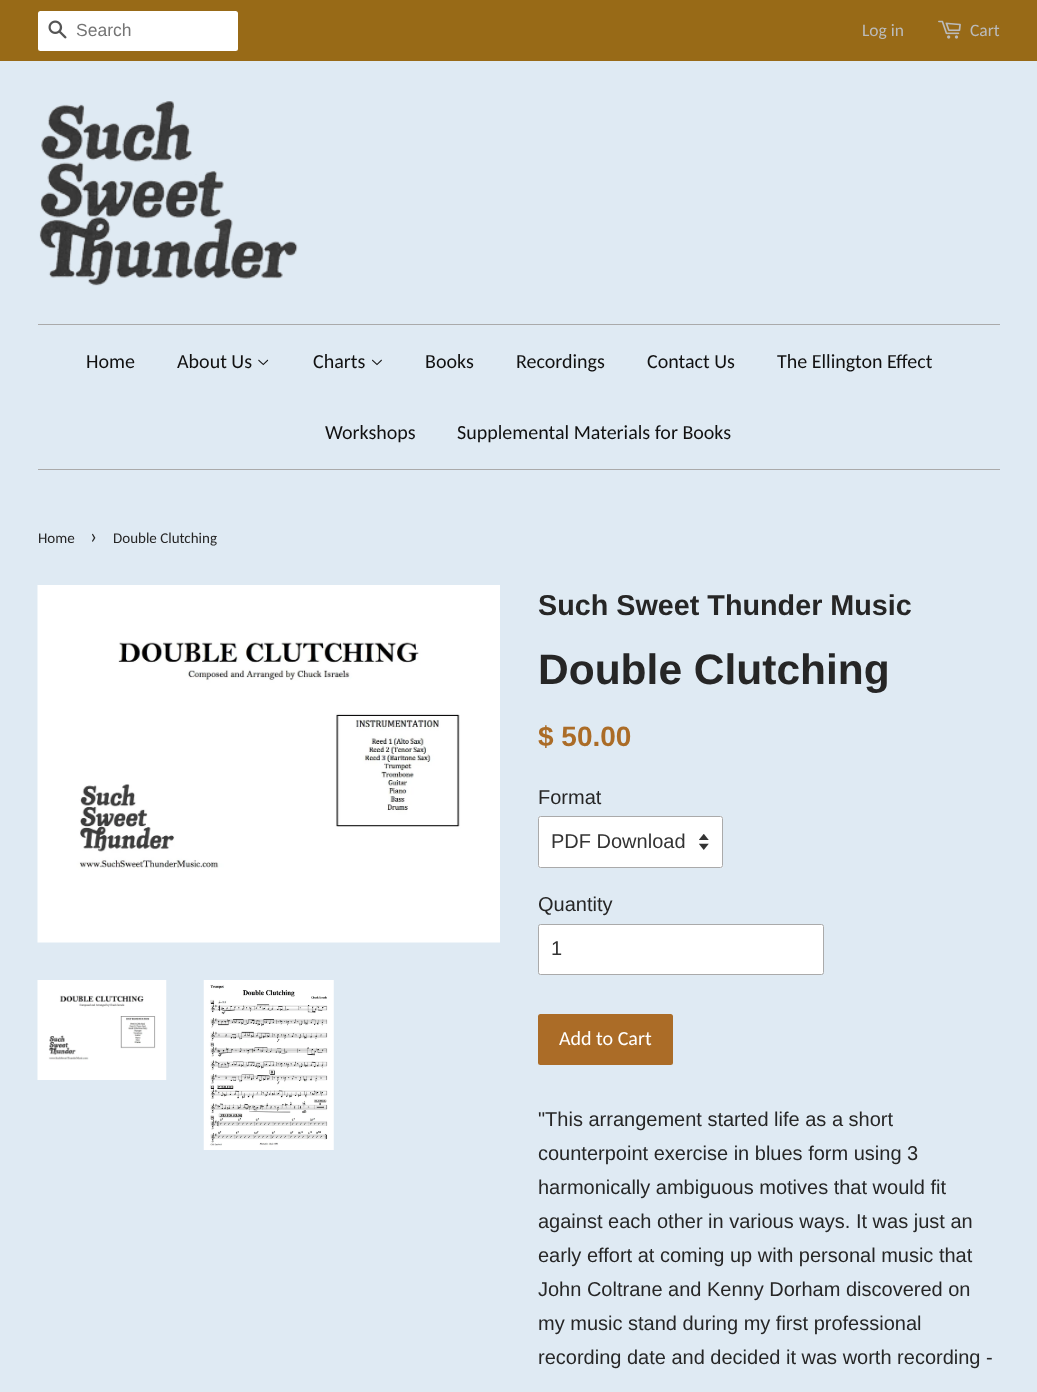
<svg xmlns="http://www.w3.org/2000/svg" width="1037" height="1392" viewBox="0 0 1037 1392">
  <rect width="100%" height="100%" fill="rgb(223,234,243)"/>
  <rect x="0" y="0" width="1037" height="61" fill="rgb(152,106,23)"/>
  <rect x="38" y="11" width="200" height="40" rx="2.5" fill="rgb(255,255,255)"/>
  <image x="48" y="20" width="19" height="19" href="pic1.png"/>
  <text x="76" y="36" font-family="Liberation Sans" font-size="17.5" fill="rgb(117,117,117)">Search</text>
  <text x="862" y="36" font-family="Carlito" font-size="17.5" fill="rgb(187,187,187)">Log in</text>
  <image x="938" y="20" width="23" height="19" href="pic2.png"/>
  <text x="970" y="36" font-family="Carlito" font-size="17.5" fill="rgb(187,187,187)">Cart</text>
  <image x="39" y="101" width="259" height="185" href="pic3.png"/>
  <rect x="38" y="324" width="962" height="1" fill="rgb(170,170,170)"/>
  <rect x="38" y="469" width="962" height="1" fill="rgb(170,170,170)"/>
  <g font-family="Carlito" font-size="20" fill="rgb(17,17,17)">
    <text x="86" y="368">Home</text>
    <text x="177" y="368">About Us</text>
  </g>
  <image x="258" y="359" width="11" height="7" href="pic4.png"/>
  <text x="313" y="368" font-family="Carlito" font-size="20" fill="rgb(17,17,17)">Charts</text>
  <image x="372" y="359" width="10" height="7" href="pic5.png"/>
  <g font-family="Carlito" font-size="20" fill="rgb(17,17,17)">
    <text x="425" y="368">Books</text>
    <text x="516" y="368">Recordings</text>
    <text x="647" y="368">Contact Us</text>
    <text x="777" y="368">The Ellington Effect</text>
    <text x="325" y="439">Workshops</text>
    <text x="457" y="439">Supplemental Materials for Books</text>
  </g>
  <text x="38" y="543" font-family="Carlito" font-size="15" fill="rgb(38,38,38)">Home</text>
  <text x="90" y="543" font-family="Carlito" font-size="21" fill="rgb(38,38,38)">›</text>
  <text x="113" y="543" font-family="Carlito" font-size="15" fill="rgb(38,38,38)">Double Clutching</text>
  <image x="37" y="585" width="463" height="358" href="pic6.png"/>
  <image x="37" y="980" width="130" height="100" href="pic7.png"/>
  <image x="203" y="980" width="131" height="170" href="pic8.png"/>
  <text x="538" y="615" font-family="Liberation Sans" font-size="28.75" font-weight="bold" fill="rgb(38,38,38)">Such Sweet Thunder Music</text>
  <text x="538" y="684" font-family="Liberation Sans" font-size="42.5" font-weight="bold" fill="rgb(38,38,38)">Double Clutching</text>
  <text x="538" y="746" font-family="Liberation Sans" font-size="28" font-weight="bold" fill="rgb(171,108,39)">$ 50.00</text>
  <text x="538" y="804" font-family="Liberation Sans" font-size="20" fill="rgb(38,38,38)">Format</text>
  <rect x="538" y="816" width="185" height="52" rx="2.5" fill="rgb(255,255,255)"/>
  <image x="699" y="834" width="10" height="16" href="pic9.png"/>
  <rect x="538.5" y="816.5" width="184" height="51" rx="2" fill="none" stroke="rgb(170,170,170)"/>
  <text x="551" y="848" font-family="Liberation Sans" font-size="20" fill="rgb(51,51,51)">PDF Download</text>
  <text x="538" y="911" font-family="Liberation Sans" font-size="20" fill="rgb(38,38,38)">Quantity</text>
  <rect x="538.5" y="924.5" width="285" height="50" rx="2" fill="rgb(255,255,255)" stroke="rgb(170,170,170)"/>
  <text x="551" y="955" font-family="Liberation Sans" font-size="20" fill="rgb(51,51,51)">1</text>
  <rect x="538" y="1014" width="135" height="51" rx="2.5" fill="rgb(171,108,39)"/>
  <text x="559" y="1045" font-family="Carlito" font-size="20" fill="rgb(255,255,255)">Add to Cart</text>
  <g font-family="Liberation Sans" font-size="20" fill="rgb(38,38,38)">
    <text>
      <tspan x="538" y="1126">"This arrangement started life as a short</tspan>
      <tspan x="538" y="1160">counterpoint exercise in blues form using 3</tspan>
      <tspan x="538" y="1194">harmonically ambiguous motives that would fit</tspan>
      <tspan x="538" y="1228">against each other in various ways. It was just an</tspan>
      <tspan x="538" y="1262">early effort at coming up with personal music that</tspan>
      <tspan x="538" y="1296">John Coltrane and Kenny Dorham discovered on</tspan>
      <tspan x="538" y="1330">my music stand during my first professional</tspan>
      <tspan x="538" y="1364">recording date and decided it was worth recording -</tspan>
    </text>
  </g>
</svg>
